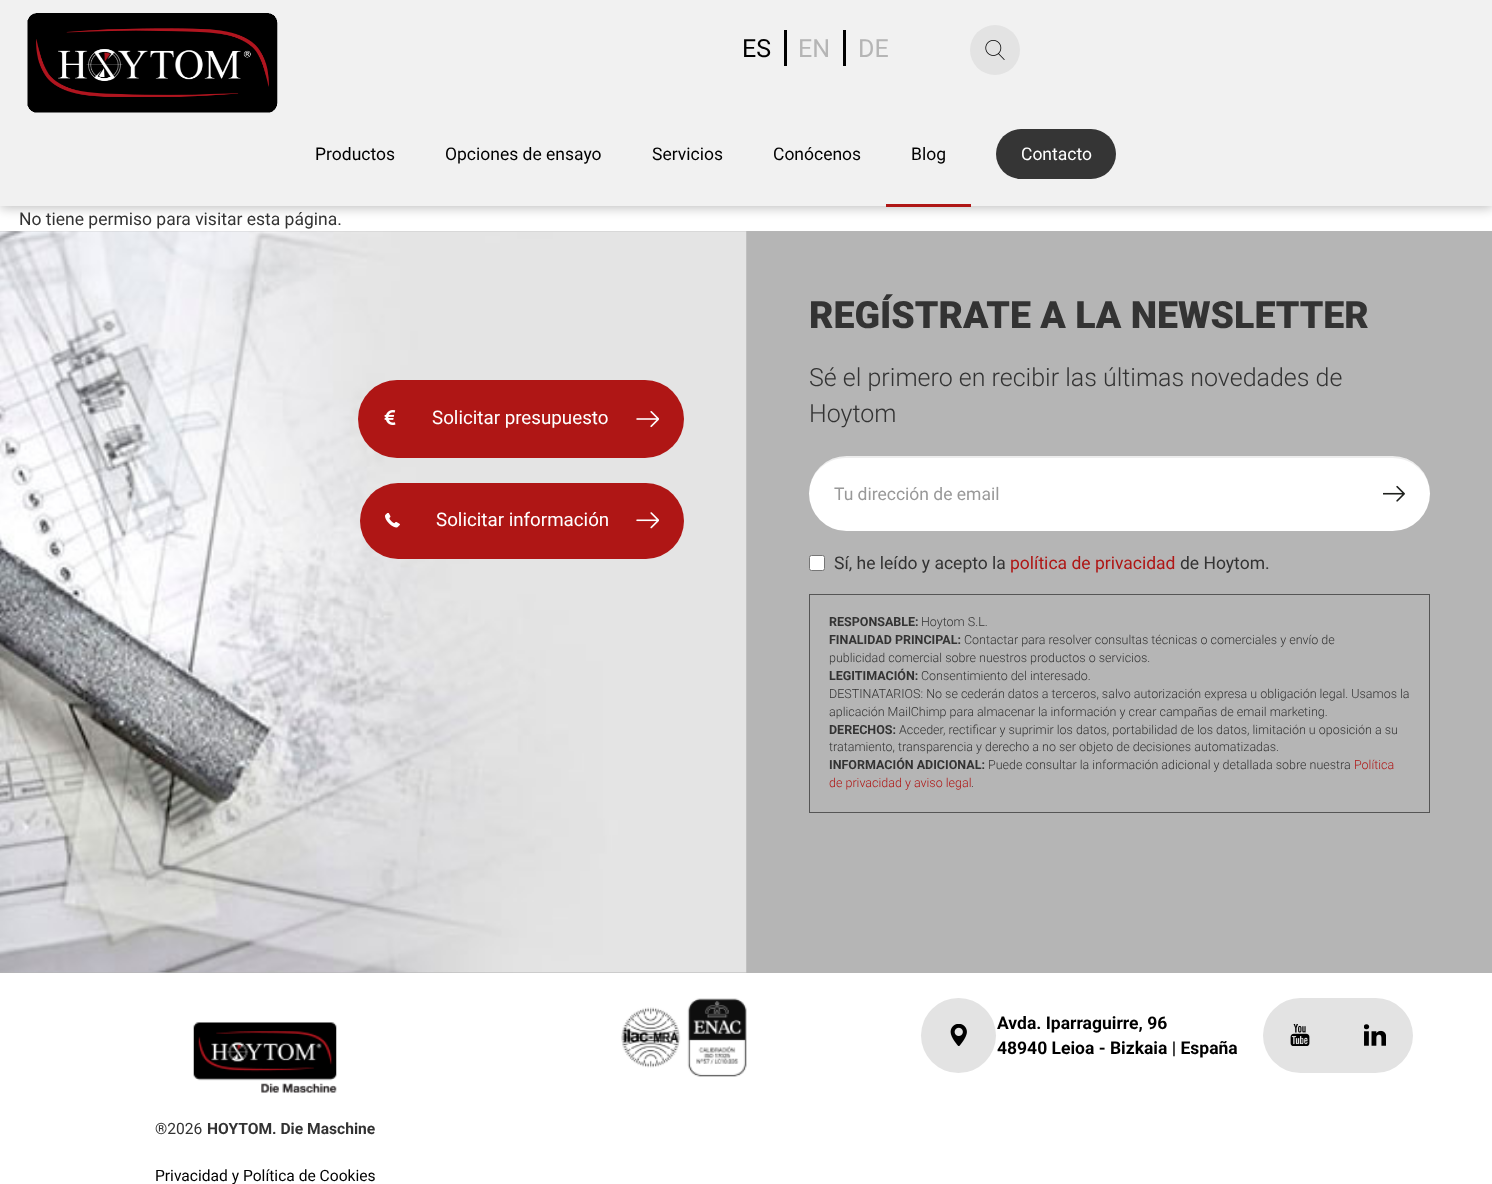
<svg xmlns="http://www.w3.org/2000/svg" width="1492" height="1184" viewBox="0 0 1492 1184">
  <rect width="100%" height="100%" fill="rgb(255,255,255)"/>
  <rect x="0" y="1" width="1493" height="207" fill="rgba(0,0,0,0.25)" filter="blur(6px)"/>
  <rect x="0" y="0" width="1492" height="206" fill="rgb(241,241,241)"/>
  <image x="27" y="13" width="251" height="100" href="pic1.png"/>
  <rect x="784" y="30" width="3" height="36" fill="rgb(0,0,0)"/>
  <text x="742" y="57" font-family="Roboto" font-size="25" fill="rgb(0,0,0)">ES</text>
  <rect x="843" y="30" width="3" height="36" fill="rgb(0,0,0)"/>
  <g font-family="Roboto" font-size="25" fill="rgb(181,181,181)">
    <text x="798" y="57">EN</text>
    <text x="858" y="57">DE</text>
  </g>
  <circle cx="995" cy="50" r="25" fill="rgb(227,227,227)"/>
  <image x="985" y="40" width="20" height="20" href="pic2.png"/>
  <g font-family="Roboto" font-size="17.5" fill="rgb(0,0,0)">
    <text x="315" y="160">Productos</text>
    <text x="445" y="160">Opciones de ensayo</text>
    <text x="652" y="160">Servicios</text>
    <text x="773" y="160">Conócenos</text>
  </g>
  <rect x="886" y="204" width="85" height="3" fill="rgb(175,22,21)"/>
  <text x="911" y="160" font-family="Roboto" font-size="17.5" fill="rgb(0,0,0)">Blog</text>
  <rect x="996" y="129" width="120" height="50" rx="25" fill="rgb(53,53,53)"/>
  <text x="1021" y="160" font-family="Roboto" font-size="17.5" fill="rgb(255,255,255)">Contacto</text>
  <text x="19" y="225" font-family="Roboto" font-size="17.5" fill="rgb(51,51,51)">No tiene permiso para visitar esta página.</text>
  <rect x="0" y="231" width="1492" height="742" fill="rgb(181,181,181)"/>
  <image x="0" y="231" width="747" height="742" href="pic3.png"/>
  <rect x="358" y="380" width="326" height="78" rx="39" fill="rgb(175,22,21)"/>
  <image x="636" y="411" width="23" height="17" href="pic4.png"/>
  <image x="384" y="410" width="12" height="15" href="pic5.png"/>
  <text x="432" y="424" font-family="Roboto" font-size="18.75" fill="rgb(255,255,255)">Solicitar presupuesto</text>
  <rect x="360" y="483" width="324" height="76" rx="38" fill="rgb(175,22,21)"/>
  <image x="636" y="512" width="23" height="17" href="pic6.png"/>
  <image x="385" y="513" width="15" height="15" href="pic7.png"/>
  <text x="436" y="526" font-family="Roboto" font-size="18.75" fill="rgb(255,255,255)">Solicitar información</text>
  <text x="809" y="328" font-family="Roboto" font-size="37.5" font-weight="900" fill="rgb(51,51,51)">REGÍSTRATE A LA NEWSLETTER</text>
  <g font-family="Roboto" font-size="25" font-weight="300" fill="rgb(51,51,51)">
    <text>
      <tspan x="809" y="386">Sé el primero en recibir las últimas novedades de</tspan>
      <tspan x="809" y="422">Hoytom</tspan>
    </text>
  </g>
  <rect x="809" y="456" width="621" height="75" rx="37.5" fill="rgb(255,255,255)"/>
  <image x="1383" y="485" width="22" height="17" href="pic8.png"/>
  <path d="M846 458H1392C1413 458 1430 474 1430 494C1430 473 1413 456 1392 456H846C826 456 809 473 809 494C809 474 826 458 846 458Z" fill="rgba(0,0,0,0.07)"/>
  <text x="834" y="500" font-family="Roboto" font-size="17.5" fill="rgb(153,153,153)">Tu dirección de email</text>
  <rect x="809.5" y="555.5" width="15" height="15" rx="2" fill="rgb(255,255,255)" stroke="rgb(118,118,118)"/>
  <text x="834" y="569" font-family="Roboto" font-size="17.5" fill="rgb(51,51,51)">Sí, he leído y acepto la</text>
  <text x="1010" y="569" font-family="Roboto" font-size="17.5" fill="rgb(175,22,21)">política de privacidad</text>
  <text x="1180" y="569" font-family="Roboto" font-size="17.5" fill="rgb(51,51,51)">de Hoytom.</text>
  <rect x="809.5" y="594.5" width="620" height="218" fill="none" stroke="rgb(85,85,85)"/>
  <text x="829" y="626" font-family="Roboto" font-size="12.5" font-weight="bold" fill="rgb(51,51,51)">RESPONSABLE:</text>
  <text x="921" y="626" font-family="Roboto" font-size="12.5" font-weight="300" fill="rgb(51,51,51)">Hoytom S.L.</text>
  <text x="829" y="644" font-family="Roboto" font-size="12.5" font-weight="bold" fill="rgb(51,51,51)">FINALIDAD PRINCIPAL:</text>
  <g font-family="Roboto" font-size="12.5" font-weight="300" fill="rgb(51,51,51)">
    <text x="964" y="644">Contactar para resolver consultas técnicas o comerciales y envío de</text>
    <text x="829" y="662">publicidad comercial sobre nuestros productos o servicios.</text>
  </g>
  <text x="829" y="680" font-family="Roboto" font-size="12.5" font-weight="bold" fill="rgb(51,51,51)">LEGITIMACIÓN:</text>
  <g font-family="Roboto" font-size="12.5" font-weight="300" fill="rgb(51,51,51)">
    <text x="921" y="680">Consentimiento del interesado.</text>
    <text>
      <tspan x="829" y="698">DESTINATARIOS: No se cederán datos a terceros, salvo autorización expresa u obligación legal. Usamos la</tspan>
      <tspan x="829" y="716">aplicación MailChimp para almacenar la información y crear campañas de email marketing.</tspan>
    </text>
  </g>
  <text x="829" y="734" font-family="Roboto" font-size="12.5" font-weight="bold" fill="rgb(51,51,51)">DERECHOS:</text>
  <g font-family="Roboto" font-size="12.5" font-weight="300" fill="rgb(51,51,51)">
    <text x="899" y="734">Acceder, rectificar y suprimir los datos, portabilidad de los datos, limitación u oposición a su</text>
    <text x="829" y="751">tratamiento, transparencia y derecho a no ser objeto de decisiones automatizadas.</text>
  </g>
  <text x="829" y="769" font-family="Roboto" font-size="12.5" font-weight="bold" fill="rgb(51,51,51)">INFORMACIÓN ADICIONAL:</text>
  <text x="988" y="769" font-family="Roboto" font-size="12.5" font-weight="300" fill="rgb(51,51,51)">Puede consultar la información adicional y detallada sobre nuestra</text>
  <g font-family="Roboto" font-size="12.5" font-weight="300" fill="rgb(175,22,21)">
    <text x="1354" y="769">Política</text>
    <text x="829" y="787">de privacidad y aviso legal</text>
  </g>
  <text x="971" y="787" font-family="Roboto" font-size="12.5" font-weight="300" fill="rgb(51,51,51)">.</text>
  <image x="621" y="998" width="126" height="79" href="pic9.png"/>
  <circle cx="958.5" cy="1035.5" r="37.5" fill="rgb(227,227,227)"/>
  <image x="950" y="1024" width="17" height="22" href="pic10.png"/>
  <g font-family="Roboto" font-size="17.5" font-weight="bold" fill="rgb(0,0,0)">
    <text>
      <tspan x="997" y="1029">Avda. Iparraguirre, 96</tspan>
      <tspan x="997" y="1054">48940 Leioa - Bizkaia | España</tspan>
    </text>
  </g>
  <rect x="1263" y="998" width="150" height="75" rx="37.5" fill="rgb(227,227,227)"/>
  <image x="1290" y="1024" width="20" height="22" href="pic11.png"/>
  <image x="1364" y="1024" width="22" height="22" href="pic12.png"/>
  <image x="193" y="1022" width="144" height="71" href="pic13.png"/>
  <text x="155" y="1134" font-family="Roboto" font-size="15.6" fill="rgb(51,51,51)">®2026</text>
  <text x="207" y="1134" font-family="Roboto" font-size="15.6" font-weight="bold" fill="rgb(51,51,51)">HOYTOM. Die Maschine</text>
  <text x="155" y="1181" font-family="Roboto" font-size="15.6" fill="rgb(0,0,0)">Privacidad y Política de Cookies</text>
</svg>
